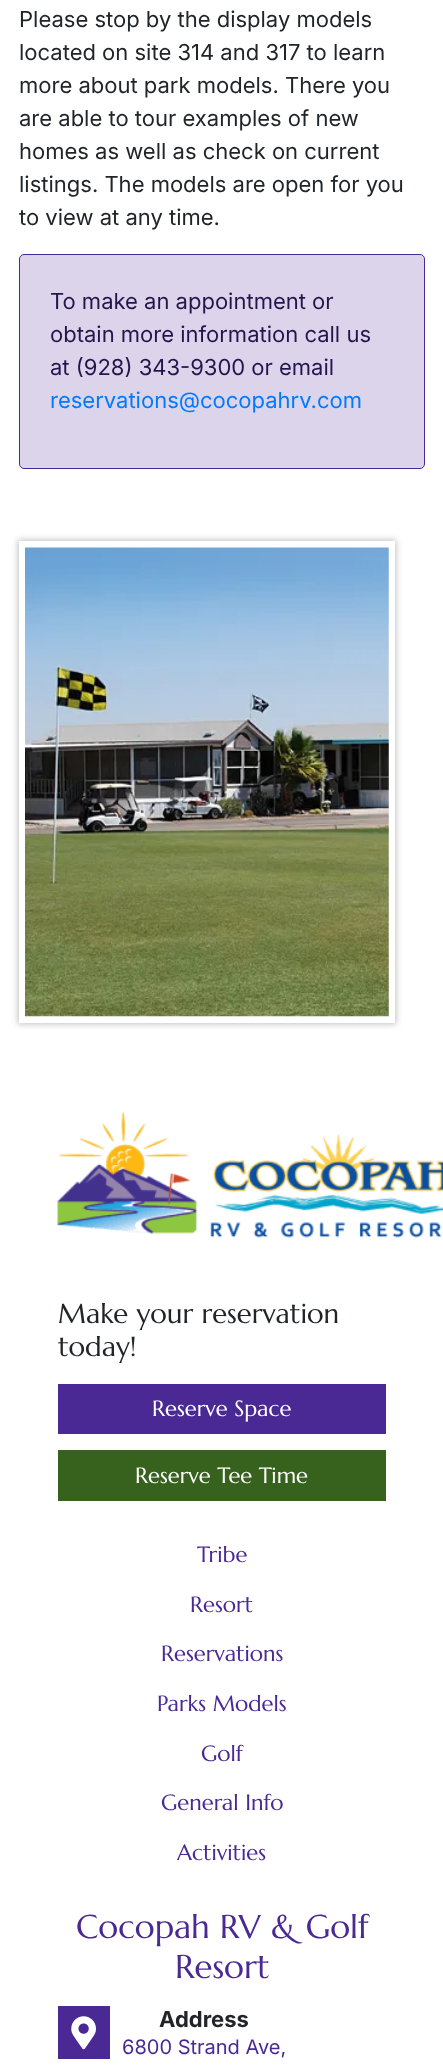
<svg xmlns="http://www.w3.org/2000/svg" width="443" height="2071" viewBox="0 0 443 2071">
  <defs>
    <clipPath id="clip1"><path d="M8 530H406V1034H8ZM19 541H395V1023H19Z" clip-rule="evenodd"/></clipPath>
  </defs>
  <rect width="100%" height="100%" fill="rgb(255,255,255)"/>
  <g font-family="Inter" font-size="22" fill="rgb(33,37,41)">
    <text>
      <tspan x="19" y="27">Please stop by the display models</tspan>
      <tspan x="19" y="60">located on site 314 and 317 to learn</tspan>
      <tspan x="19" y="93">more about park models. There you</tspan>
      <tspan x="19" y="126">are able to tour examples of new</tspan>
      <tspan x="19" y="159">homes as well as check on current</tspan>
      <tspan x="19" y="192">listings. The models are open for you</tspan>
      <tspan x="19" y="225">to view at any time.</tspan>
    </text>
  </g>
  <rect x="19.5" y="254.5" width="405" height="214" rx="4.5" fill="rgb(219,212,234)" stroke="rgb(74,41,148)"/>
  <g font-family="Inter" font-size="22" fill="rgb(38,21,77)">
    <text>
      <tspan x="50" y="309">To make an appointment or</tspan>
      <tspan x="50" y="342">obtain more information call us</tspan>
      <tspan x="50" y="375">at (928) 343-9300 or email</tspan>
    </text>
  </g>
  <text x="50" y="408" font-family="Inter" font-size="22" fill="rgb(0,123,255)">reservations@cocopahrv.com</text>
  <g clip-path="url(#clip1)">
    <rect x="18" y="540" width="378" height="484" fill="rgba(0,0,0,0.25)" filter="blur(3px)"/>
  </g>
  <image x="25" y="547" width="364" height="470" href="pic1.png"/>
  <image x="57" y="1112" width="386" height="126" href="pic2.png"/>
  <g font-family="Marcellus" font-size="27.5" fill="rgb(33,37,41)">
    <text>
      <tspan x="58" y="1323">Make your reservation</tspan>
      <tspan x="58" y="1356">today!</tspan>
    </text>
  </g>
  <rect x="58" y="1384" width="328" height="50" fill="rgb(74,41,148)"/>
  <text x="152" y="1416" font-family="Marcellus" font-size="22" fill="rgb(255,255,255)">Reserve Space</text>
  <rect x="58" y="1450" width="328" height="51" fill="rgb(55,98,30)"/>
  <text x="135" y="1483" font-family="Marcellus" font-size="22" fill="rgb(255,255,255)">Reserve Tee Time</text>
  <g font-family="Marcellus" font-size="22" fill="rgb(74,41,148)">
    <text x="197" y="1562">Tribe</text>
    <text x="190" y="1612">Resort</text>
    <text x="161" y="1661">Reservations</text>
    <text x="157" y="1711">Parks Models</text>
    <text x="201" y="1761">Golf</text>
    <text x="161" y="1810">General Info</text>
    <text x="177" y="1860">Activities</text>
  </g>
  <g font-family="Marcellus" font-size="33" fill="rgb(74,41,148)">
    <text x="76" y="1938">Cocopah RV &amp; Golf</text>
    <text x="175" y="1978">Resort</text>
  </g>
  <rect x="58" y="2006" width="52" height="53" fill="rgb(74,41,148)"/>
  <image x="71" y="2016" width="25" height="34" href="pic3.png"/>
  <text x="159" y="2027" font-family="Inter" font-size="22" font-weight="bold" fill="rgb(33,37,41)">Address</text>
  <text x="122" y="2054" font-family="Inter" font-size="20" fill="rgb(74,41,148)">6800 Strand Ave,</text>
</svg>
